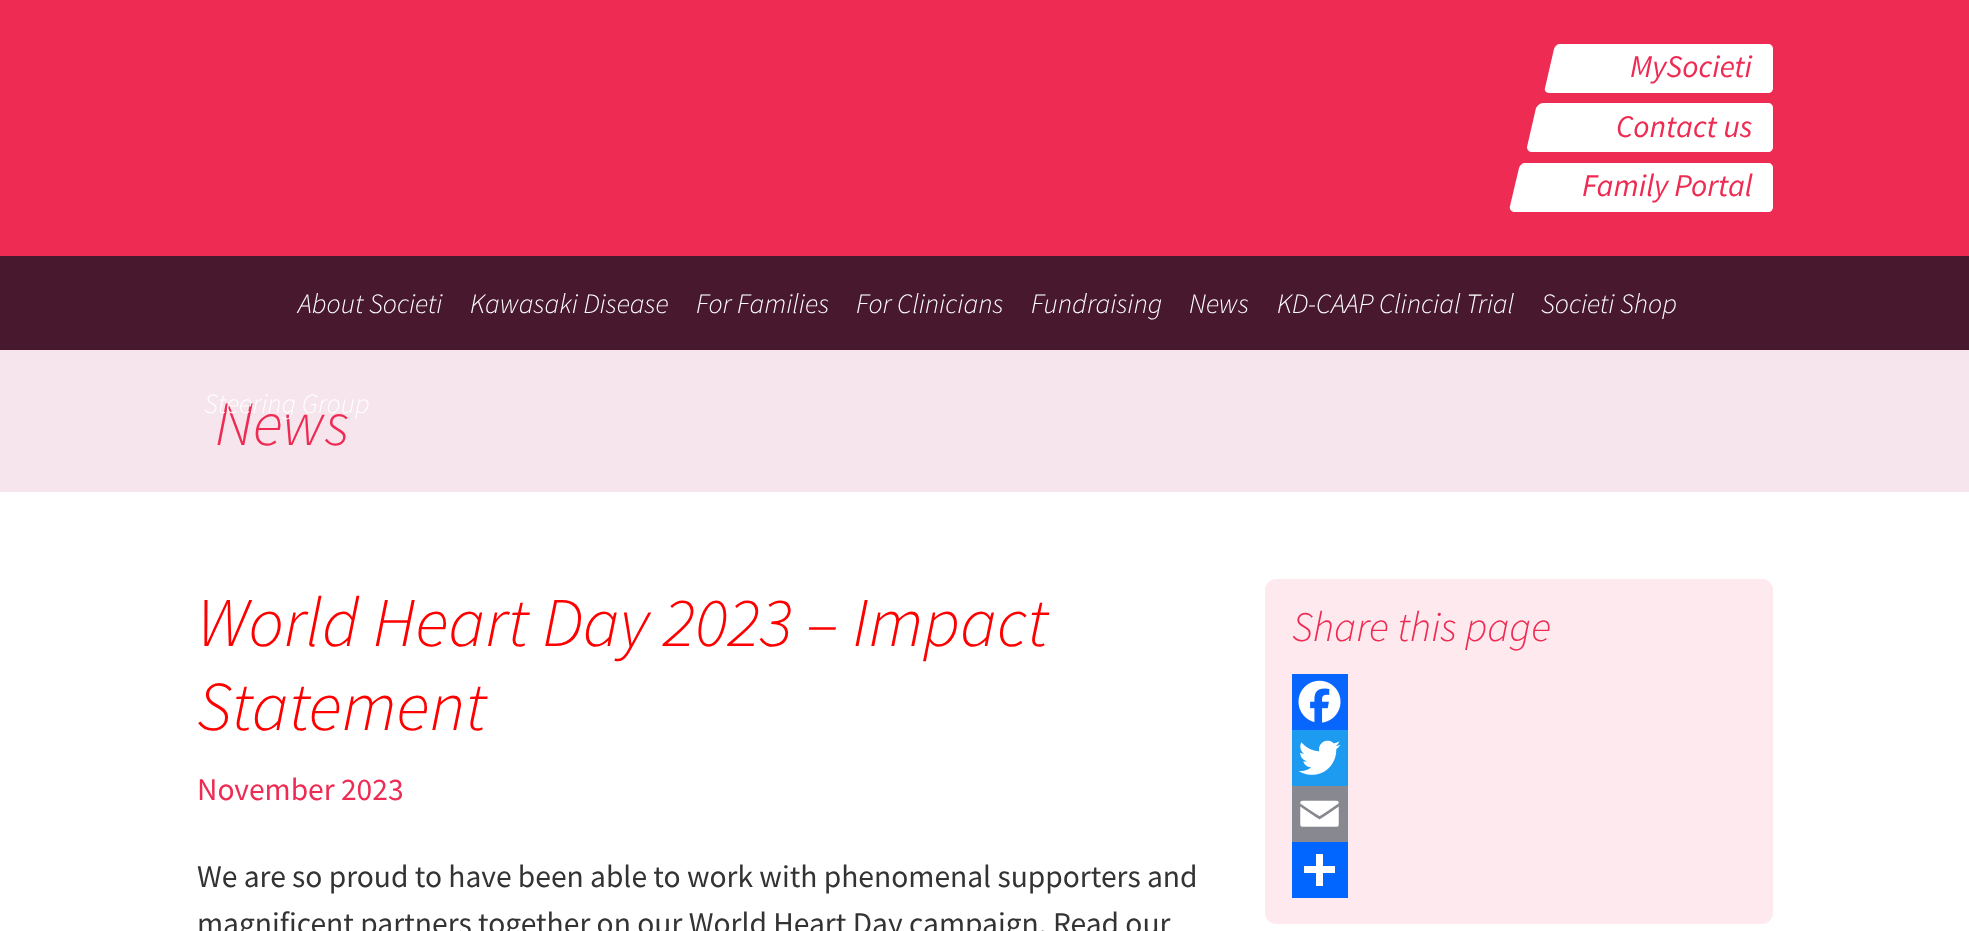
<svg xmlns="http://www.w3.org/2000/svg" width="1969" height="931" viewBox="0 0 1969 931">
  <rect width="100%" height="100%" fill="rgb(255,255,255)"/>
  <rect x="0" y="0" width="1969" height="256" fill="rgb(238,43,83)"/>
  <path d="M1577 44H1768C1771 44 1773 46 1773 49V88C1773 91 1771 93 1768 93H1577Z" fill="rgb(255,255,255)"/>
  <path d="M1560 44H1590L1579 93H1549C1546 93 1544 90 1545 88L1554 49C1555 46 1557 44 1560 44Z" fill="rgb(255,255,255)"/>
  <text x="1630" y="77" font-family="Source Sans Pro" font-size="31.5" font-style="italic" fill="rgb(238,43,83)">MySocieti</text>
  <path d="M1559 103H1768C1771 103 1773 105 1773 108V147C1773 150 1771 152 1768 152H1559Z" fill="rgb(255,255,255)"/>
  <path d="M1543 103H1573L1561 152H1532C1529 152 1527 150 1527 147L1536 108C1537 106 1540 103 1543 103Z" fill="rgb(255,255,255)"/>
  <text x="1616" y="137" font-family="Source Sans Pro" font-size="31.5" font-style="italic" fill="rgb(238,43,83)">Contact us</text>
  <path d="M1542 163H1768C1771 163 1773 165 1773 168V207C1773 210 1771 212 1768 212H1542Z" fill="rgb(255,255,255)"/>
  <path d="M1525 163H1555L1544 212H1514C1511 212 1509 209 1510 206L1519 168C1520 165 1522 163 1525 163Z" fill="rgb(255,255,255)"/>
  <text x="1582" y="196" font-family="Source Sans Pro" font-size="31.5" font-style="italic" fill="rgb(238,43,83)">Family Portal</text>
  <rect x="0" y="256" width="1969" height="94" fill="rgb(72,25,46)"/>
  <g font-family="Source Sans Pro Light" font-size="28" font-weight="300" font-style="italic" fill="rgb(255,255,255)">
    <text x="298" y="313">About Societi</text>
    <text x="470" y="313">Kawasaki Disease</text>
    <text x="696" y="313">For Families</text>
    <text x="856" y="313">For Clinicians</text>
    <text x="1031" y="313">Fundraising</text>
    <text x="1189" y="313">News</text>
    <text x="1277" y="313">KD-CAAP Clincial Trial</text>
    <text x="1541" y="313">Societi Shop</text>
  </g>
  <rect x="0" y="350" width="1969" height="142" fill="rgb(246,229,236)"/>
  <text x="215" y="445" font-family="Source Sans Pro Light" font-size="63" font-weight="300" font-style="italic" fill="rgb(238,43,83)">News</text>
  <text x="204" y="413" font-family="Source Sans Pro Light" font-size="28" font-weight="300" font-style="italic" fill="rgb(255,255,255)">Steering Group</text>
  <g font-family="Source Sans Pro Light" font-size="70" font-weight="300" font-style="italic" fill="rgb(255,0,0)">
    <text>
      <tspan x="197" y="646">World Heart Day 2023 – Impact</tspan>
      <tspan x="197" y="730">Statement</tspan>
    </text>
  </g>
  <text x="197" y="800" font-family="Source Sans Pro" font-size="31.5" fill="rgb(238,43,83)">November 2023</text>
  <g font-family="Source Sans Pro" font-size="31.5" fill="rgb(51,51,51)">
    <text>
      <tspan x="197" y="887">We are so proud to have been able to work with phenomenal supporters and</tspan>
      <tspan x="197" y="934">magnificent partners together on our World Heart Day campaign. Read our</tspan>
    </text>
  </g>
  <rect x="1265" y="579" width="508" height="345" rx="11" fill="rgb(254,234,238)"/>
  <text x="1292" y="641" font-family="Source Sans Pro Light" font-size="42" font-weight="300" font-style="italic" fill="rgb(238,43,83)">Share this page</text>
  <rect x="1292" y="674" width="56" height="56" fill="rgb(8,102,255)"/>
  <image x="1298" y="680" width="43" height="43" href="pic1.png"/>
  <rect x="1292" y="730" width="56" height="56" fill="rgb(29,155,240)"/>
  <image x="1298" y="740" width="43" height="35" href="pic2.png"/>
  <rect x="1292" y="786" width="56" height="56" fill="rgb(136,137,144)"/>
  <image x="1300" y="800" width="39" height="27" href="pic3.png"/>
  <rect x="1292" y="842" width="56" height="56" fill="rgb(1,102,255)"/>
  <rect x="1316" y="854" width="7" height="32" fill="rgb(255,255,255)"/>
  <rect x="1304" y="866" width="31" height="7" fill="rgb(255,255,255)"/>
</svg>
